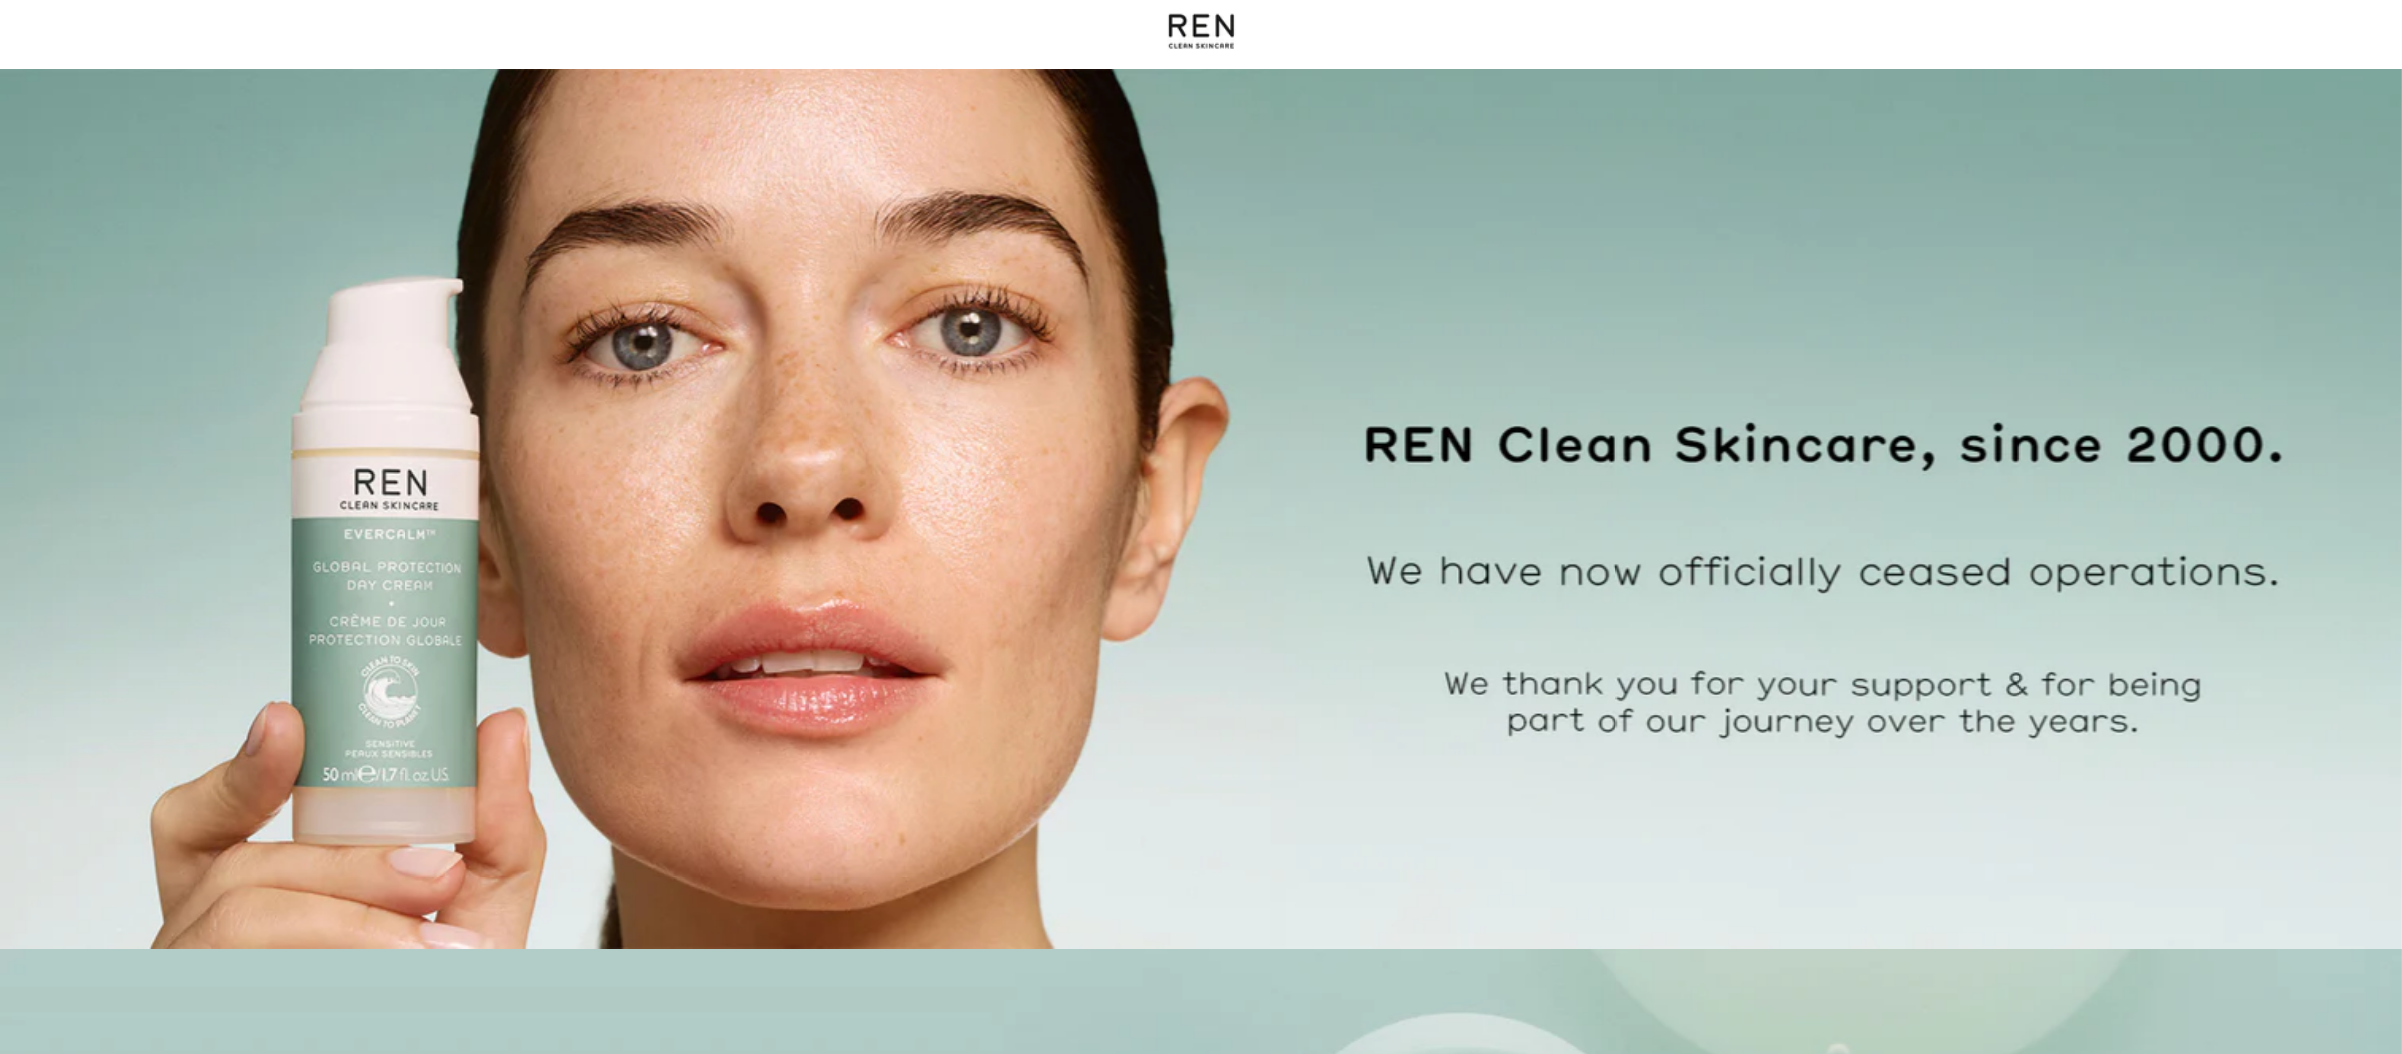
<svg xmlns="http://www.w3.org/2000/svg" width="2402" height="1054" viewBox="0 0 2402 1054">
  <rect width="100%" height="100%" fill="rgb(255,255,255)"/>
  <image x="1167" y="13" width="69" height="37" href="pic1.png"/>
  <image x="0" y="69" width="2402" height="880" href="pic2.png"/>
  <image x="0" y="949" width="2402" height="105" href="pic3.png"/>
</svg>
